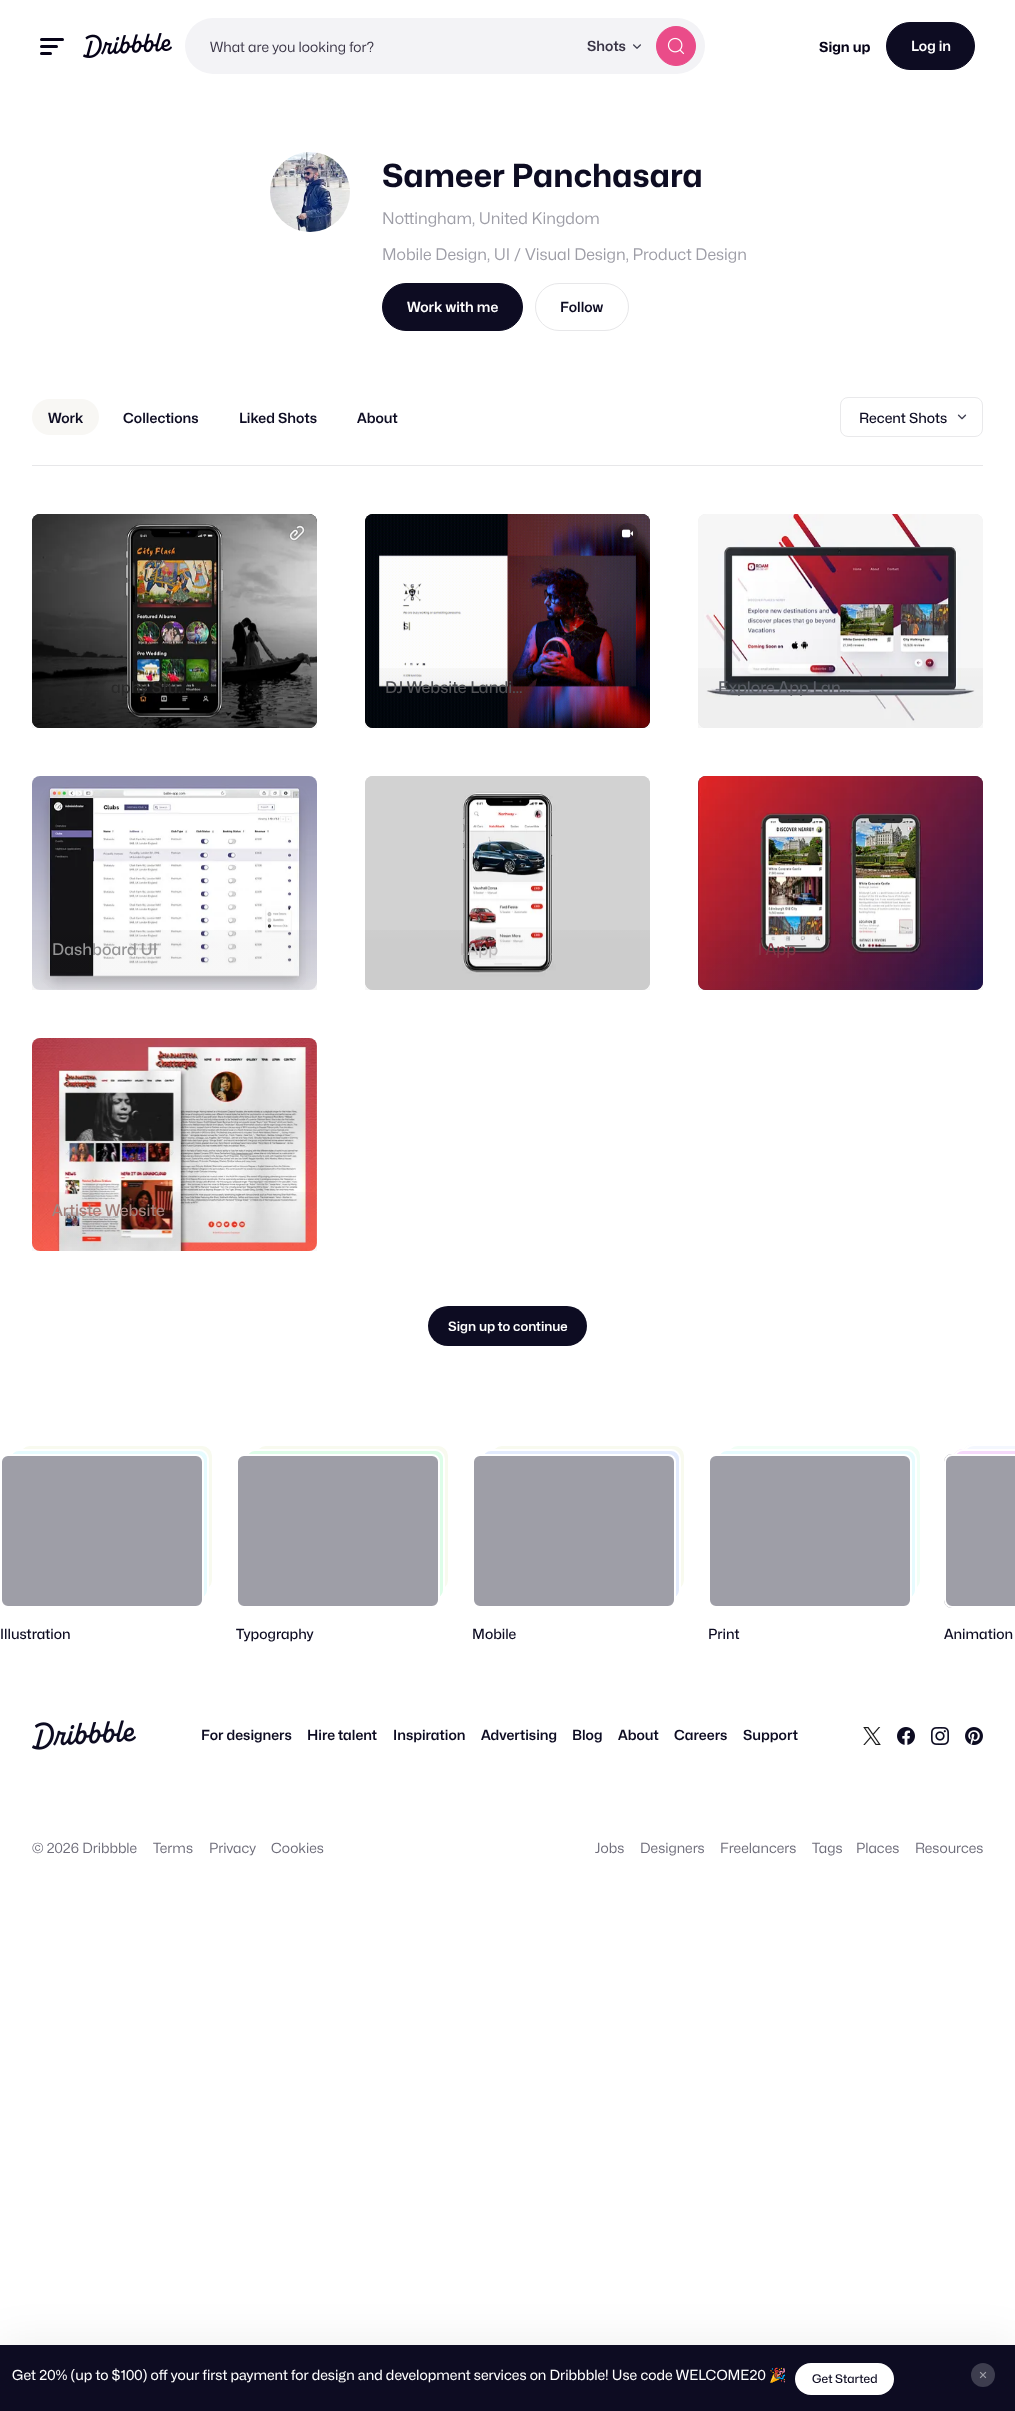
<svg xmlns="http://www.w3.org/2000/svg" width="1015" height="2411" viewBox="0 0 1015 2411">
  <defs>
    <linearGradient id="g1" gradientUnits="userSpaceOnUse" x1="175" y1="514" x2="175" y2="728"><stop offset="0" stop-color="rgb(0,0,0)" stop-opacity="0"/><stop offset="0.15" stop-color="rgb(0,0,0)" stop-opacity="0"/><stop offset="0.23" stop-color="rgb(0,0,0)" stop-opacity="0"/><stop offset="0.29" stop-color="rgb(0,0,0)" stop-opacity="0"/><stop offset="0.35" stop-color="rgb(0,0,0)" stop-opacity="0.01"/><stop offset="0.41" stop-color="rgb(0,0,0)" stop-opacity="0.01"/><stop offset="0.47" stop-color="rgb(0,0,0)" stop-opacity="0.02"/><stop offset="0.53" stop-color="rgb(0,0,0)" stop-opacity="0.02"/><stop offset="0.59" stop-color="rgb(0,0,0)" stop-opacity="0.02"/><stop offset="0.65" stop-color="rgb(0,0,0)" stop-opacity="0.02"/><stop offset="0.71" stop-color="rgb(0,0,0)" stop-opacity="0.02"/><stop offset="0.78" stop-color="rgb(0,0,0)" stop-opacity="0.03"/><stop offset="0.84" stop-color="rgb(0,0,0)" stop-opacity="0.03"/><stop offset="0.92" stop-color="rgb(0,0,0)" stop-opacity="0.03"/><stop offset="1" stop-color="rgb(0,0,0)" stop-opacity="0.03"/></linearGradient>
    <linearGradient id="g2" gradientUnits="userSpaceOnUse" x1="508" y1="514" x2="508" y2="728"><stop offset="0" stop-color="rgb(0,0,0)" stop-opacity="0"/><stop offset="0.15" stop-color="rgb(0,0,0)" stop-opacity="0"/><stop offset="0.23" stop-color="rgb(0,0,0)" stop-opacity="0"/><stop offset="0.29" stop-color="rgb(0,0,0)" stop-opacity="0"/><stop offset="0.35" stop-color="rgb(0,0,0)" stop-opacity="0.01"/><stop offset="0.41" stop-color="rgb(0,0,0)" stop-opacity="0.01"/><stop offset="0.47" stop-color="rgb(0,0,0)" stop-opacity="0.02"/><stop offset="0.53" stop-color="rgb(0,0,0)" stop-opacity="0.02"/><stop offset="0.59" stop-color="rgb(0,0,0)" stop-opacity="0.02"/><stop offset="0.65" stop-color="rgb(0,0,0)" stop-opacity="0.02"/><stop offset="0.71" stop-color="rgb(0,0,0)" stop-opacity="0.02"/><stop offset="0.78" stop-color="rgb(0,0,0)" stop-opacity="0.03"/><stop offset="0.84" stop-color="rgb(0,0,0)" stop-opacity="0.03"/><stop offset="0.92" stop-color="rgb(0,0,0)" stop-opacity="0.03"/><stop offset="1" stop-color="rgb(0,0,0)" stop-opacity="0.03"/></linearGradient>
    <linearGradient id="g3" gradientUnits="userSpaceOnUse" x1="841" y1="514" x2="841" y2="728"><stop offset="0" stop-color="rgb(0,0,0)" stop-opacity="0"/><stop offset="0.15" stop-color="rgb(0,0,0)" stop-opacity="0"/><stop offset="0.23" stop-color="rgb(0,0,0)" stop-opacity="0"/><stop offset="0.29" stop-color="rgb(0,0,0)" stop-opacity="0"/><stop offset="0.35" stop-color="rgb(0,0,0)" stop-opacity="0.01"/><stop offset="0.41" stop-color="rgb(0,0,0)" stop-opacity="0.01"/><stop offset="0.47" stop-color="rgb(0,0,0)" stop-opacity="0.02"/><stop offset="0.53" stop-color="rgb(0,0,0)" stop-opacity="0.02"/><stop offset="0.59" stop-color="rgb(0,0,0)" stop-opacity="0.02"/><stop offset="0.65" stop-color="rgb(0,0,0)" stop-opacity="0.02"/><stop offset="0.71" stop-color="rgb(0,0,0)" stop-opacity="0.02"/><stop offset="0.78" stop-color="rgb(0,0,0)" stop-opacity="0.03"/><stop offset="0.84" stop-color="rgb(0,0,0)" stop-opacity="0.03"/><stop offset="0.92" stop-color="rgb(0,0,0)" stop-opacity="0.03"/><stop offset="1" stop-color="rgb(0,0,0)" stop-opacity="0.03"/></linearGradient>
    <linearGradient id="g4" gradientUnits="userSpaceOnUse" x1="175" y1="776" x2="175" y2="990"><stop offset="0" stop-color="rgb(0,0,0)" stop-opacity="0"/><stop offset="0.15" stop-color="rgb(0,0,0)" stop-opacity="0"/><stop offset="0.23" stop-color="rgb(0,0,0)" stop-opacity="0"/><stop offset="0.29" stop-color="rgb(0,0,0)" stop-opacity="0"/><stop offset="0.35" stop-color="rgb(0,0,0)" stop-opacity="0.01"/><stop offset="0.41" stop-color="rgb(0,0,0)" stop-opacity="0.01"/><stop offset="0.47" stop-color="rgb(0,0,0)" stop-opacity="0.02"/><stop offset="0.53" stop-color="rgb(0,0,0)" stop-opacity="0.02"/><stop offset="0.59" stop-color="rgb(0,0,0)" stop-opacity="0.02"/><stop offset="0.65" stop-color="rgb(0,0,0)" stop-opacity="0.02"/><stop offset="0.71" stop-color="rgb(0,0,0)" stop-opacity="0.02"/><stop offset="0.78" stop-color="rgb(0,0,0)" stop-opacity="0.03"/><stop offset="0.84" stop-color="rgb(0,0,0)" stop-opacity="0.03"/><stop offset="0.92" stop-color="rgb(0,0,0)" stop-opacity="0.03"/><stop offset="1" stop-color="rgb(0,0,0)" stop-opacity="0.03"/></linearGradient>
    <linearGradient id="g5" gradientUnits="userSpaceOnUse" x1="508" y1="776" x2="508" y2="990"><stop offset="0" stop-color="rgb(0,0,0)" stop-opacity="0"/><stop offset="0.15" stop-color="rgb(0,0,0)" stop-opacity="0"/><stop offset="0.23" stop-color="rgb(0,0,0)" stop-opacity="0"/><stop offset="0.29" stop-color="rgb(0,0,0)" stop-opacity="0"/><stop offset="0.35" stop-color="rgb(0,0,0)" stop-opacity="0.01"/><stop offset="0.41" stop-color="rgb(0,0,0)" stop-opacity="0.01"/><stop offset="0.47" stop-color="rgb(0,0,0)" stop-opacity="0.02"/><stop offset="0.53" stop-color="rgb(0,0,0)" stop-opacity="0.02"/><stop offset="0.59" stop-color="rgb(0,0,0)" stop-opacity="0.02"/><stop offset="0.65" stop-color="rgb(0,0,0)" stop-opacity="0.02"/><stop offset="0.71" stop-color="rgb(0,0,0)" stop-opacity="0.02"/><stop offset="0.78" stop-color="rgb(0,0,0)" stop-opacity="0.03"/><stop offset="0.84" stop-color="rgb(0,0,0)" stop-opacity="0.03"/><stop offset="0.92" stop-color="rgb(0,0,0)" stop-opacity="0.03"/><stop offset="1" stop-color="rgb(0,0,0)" stop-opacity="0.03"/></linearGradient>
    <linearGradient id="g6" gradientUnits="userSpaceOnUse" x1="841" y1="776" x2="841" y2="990"><stop offset="0" stop-color="rgb(0,0,0)" stop-opacity="0"/><stop offset="0.15" stop-color="rgb(0,0,0)" stop-opacity="0"/><stop offset="0.23" stop-color="rgb(0,0,0)" stop-opacity="0"/><stop offset="0.29" stop-color="rgb(0,0,0)" stop-opacity="0"/><stop offset="0.35" stop-color="rgb(0,0,0)" stop-opacity="0.01"/><stop offset="0.41" stop-color="rgb(0,0,0)" stop-opacity="0.01"/><stop offset="0.47" stop-color="rgb(0,0,0)" stop-opacity="0.02"/><stop offset="0.53" stop-color="rgb(0,0,0)" stop-opacity="0.02"/><stop offset="0.59" stop-color="rgb(0,0,0)" stop-opacity="0.02"/><stop offset="0.65" stop-color="rgb(0,0,0)" stop-opacity="0.02"/><stop offset="0.71" stop-color="rgb(0,0,0)" stop-opacity="0.02"/><stop offset="0.78" stop-color="rgb(0,0,0)" stop-opacity="0.03"/><stop offset="0.84" stop-color="rgb(0,0,0)" stop-opacity="0.03"/><stop offset="0.92" stop-color="rgb(0,0,0)" stop-opacity="0.03"/><stop offset="1" stop-color="rgb(0,0,0)" stop-opacity="0.03"/></linearGradient>
    <linearGradient id="g7" gradientUnits="userSpaceOnUse" x1="175" y1="1038" x2="175" y2="1251"><stop offset="0" stop-color="rgb(0,0,0)" stop-opacity="0"/><stop offset="0.16" stop-color="rgb(0,0,0)" stop-opacity="0"/><stop offset="0.22" stop-color="rgb(0,0,0)" stop-opacity="0"/><stop offset="0.29" stop-color="rgb(0,0,0)" stop-opacity="0"/><stop offset="0.35" stop-color="rgb(0,0,0)" stop-opacity="0.01"/><stop offset="0.41" stop-color="rgb(0,0,0)" stop-opacity="0.01"/><stop offset="0.47" stop-color="rgb(0,0,0)" stop-opacity="0.02"/><stop offset="0.53" stop-color="rgb(0,0,0)" stop-opacity="0.02"/><stop offset="0.59" stop-color="rgb(0,0,0)" stop-opacity="0.02"/><stop offset="0.65" stop-color="rgb(0,0,0)" stop-opacity="0.02"/><stop offset="0.71" stop-color="rgb(0,0,0)" stop-opacity="0.02"/><stop offset="0.78" stop-color="rgb(0,0,0)" stop-opacity="0.03"/><stop offset="0.84" stop-color="rgb(0,0,0)" stop-opacity="0.03"/><stop offset="0.92" stop-color="rgb(0,0,0)" stop-opacity="0.03"/><stop offset="1" stop-color="rgb(0,0,0)" stop-opacity="0.03"/></linearGradient>
  </defs>
  <rect width="100%" height="100%" fill="rgb(255,255,255)"/>
  <rect x="40" y="38" width="24" height="3" rx="1.5" fill="rgb(6,3,24)"/>
  <rect x="40" y="45" width="18" height="3" rx="1.5" fill="rgb(6,3,24)"/>
  <rect x="40" y="52" width="12" height="3" rx="1.5" fill="rgb(6,3,24)"/>
  <image x="83" y="33" width="89" height="25" href="pic1.png"/>
  <rect x="185" y="18" width="520" height="56" rx="28" fill="rgb(243,243,246)"/>
  <text x="210" y="52" font-family="Mona Sans" font-size="14" fill="rgb(58,53,70)">What are you looking for?</text>
  <text x="587" y="51" font-family="Mona Sans" font-size="14" font-weight="600" fill="rgb(58,53,70)">Shots</text>
  <image x="633" y="44" width="8" height="5" href="pic2.png"/>
  <circle cx="676" cy="46" r="19.5" fill="rgb(234,76,137)" stroke="rgb(234,76,137)"/>
  <image x="667" y="37" width="18" height="18" href="pic3.png"/>
  <text x="819" y="52" font-family="Mona Sans" font-size="14" font-weight="bold" fill="rgb(6,3,24)">Sign up</text>
  <rect x="886.5" y="22.5" width="88" height="47" rx="23.5" fill="rgb(13,12,34)" stroke="rgb(13,12,34)"/>
  <text x="911" y="51" font-family="Mona Sans" font-size="14" font-weight="600" fill="rgb(255,255,255)">Log in</text>
  <circle cx="310" cy="192" r="40" fill="rgb(253,252,251)"/>
  <image x="270" y="152" width="80" height="80" href="pic4.png"/>
  <text x="382" y="187" font-family="Mona Sans" font-size="32" font-weight="bold" fill="rgb(13,12,34)">Sameer Panchasara</text>
  <g font-family="Mona Sans" font-size="16" fill="rgb(158,158,167)">
    <text x="382" y="224">Nottingham, United Kingdom</text>
    <text x="382" y="260">Mobile Design, UI / Visual Design, Product Design</text>
  </g>
  <rect x="382.5" y="283.5" width="140" height="47" rx="23.5" fill="rgb(13,12,34)" stroke="rgb(13,12,34)"/>
  <text x="407" y="312" font-family="Mona Sans" font-size="14" font-weight="600" fill="rgb(255,255,255)">Work with me</text>
  <rect x="535.5" y="283.5" width="93" height="47" rx="23.5" fill="none" stroke="rgb(231,231,233)"/>
  <text x="560" y="312" font-family="Mona Sans" font-size="14" font-weight="600" fill="rgb(13,12,34)">Follow</text>
  <rect x="32" y="465" width="951" height="1" fill="rgb(231,231,233)"/>
  <rect x="32" y="399" width="67" height="36" rx="18" fill="rgb(248,247,244)"/>
  <g font-family="Mona Sans" font-size="14" font-weight="600" fill="rgb(13,12,34)">
    <text x="48" y="423">Work</text>
    <text x="123" y="423">Collections</text>
    <text x="239" y="423">Liked Shots</text>
    <text x="357" y="423">About</text>
  </g>
  <rect x="840.5" y="397.5" width="142" height="39" rx="7.5" fill="none" stroke="rgb(233,233,235)"/>
  <text x="859" y="423" font-family="Mona Sans" font-size="14" font-weight="500" fill="rgb(13,12,34)">Recent Shots</text>
  <image x="957" y="414" width="10" height="6" href="pic5.png"/>
  <rect x="32" y="514" width="285" height="214" rx="8" fill="rgb(12,12,11)"/>
  <image x="32" y="514" width="285" height="214" href="pic6.png"/>
  <image x="289" y="525" width="16" height="16" href="pic7.png"/>
  <rect x="32" y="668" width="285" height="60" fill="url(#g1)"/>
  <text x="111" y="693" font-family="Mona Sans" font-size="16" font-weight="500" fill="rgb(41,41,41)">aphy Stu…</text>
  <rect x="365" y="514" width="285" height="214" rx="8" fill="rgb(9,3,8)"/>
  <image x="365" y="514" width="285" height="214" href="pic8.png"/>
  <circle cx="627.5" cy="533.5" r="10.5" fill="rgba(0,0,0,0.2)"/>
  <image x="622" y="529" width="11" height="9" href="pic9.png"/>
  <rect x="365" y="668" width="285" height="60" fill="url(#g2)"/>
  <text x="385" y="693" font-family="Mona Sans" font-size="16" font-weight="500" fill="rgb(80,81,85)">DJ Website Landi…</text>
  <rect x="698" y="514" width="285" height="214" rx="8" fill="rgb(236,236,237)"/>
  <image x="698" y="514" width="285" height="214" href="pic10.png"/>
  <rect x="698" y="668" width="285" height="60" fill="url(#g3)"/>
  <text x="718" y="693" font-family="Mona Sans" font-size="16" font-weight="500" fill="rgb(89,93,100)">Explore App Lan…</text>
  <image x="32" y="776" width="285" height="214" href="pic11.png"/>
  <rect x="32" y="930" width="285" height="60" fill="url(#g4)"/>
  <text x="52" y="955" font-family="Mona Sans" font-size="16" font-weight="500" fill="rgb(148,148,149)">Dashboard UI</text>
  <rect x="365" y="776" width="285" height="214" rx="8" fill="rgb(209,209,209)"/>
  <image x="365" y="776" width="285" height="214" href="pic12.png"/>
  <rect x="365" y="930" width="285" height="60" fill="url(#g5)"/>
  <text x="460" y="955" font-family="Mona Sans" font-size="16" font-weight="500" fill="rgb(190,187,188)">l App</text>
  <rect x="698" y="776" width="285" height="214" rx="8" fill="rgb(90,44,63)"/>
  <image x="698" y="776" width="285" height="214" href="pic13.png"/>
  <rect x="698" y="930" width="285" height="60" fill="url(#g6)"/>
  <text x="758" y="955" font-family="Mona Sans" font-size="16" font-weight="500" fill="rgb(134,53,69)">l App</text>
  <rect x="32" y="1038" width="285" height="213" rx="8" fill="rgb(237,237,237)"/>
  <image x="32" y="1038" width="285" height="213" href="pic14.png"/>
  <rect x="32" y="1192" width="285" height="59" fill="url(#g7)"/>
  <text x="52" y="1216" font-family="Mona Sans" font-size="16" font-weight="500" fill="rgb(163,130,125)">Artiste Website</text>
  <rect x="428" y="1306" width="159" height="40" rx="20" fill="rgb(13,12,34)"/>
  <text x="448" y="1331" font-family="Mona Sans" font-size="13" font-weight="600" fill="rgb(255,255,255)">Sign up to continue</text>
  <rect x="19" y="1445" width="194" height="146" rx="11" fill="rgb(248,250,239)" stroke="rgb(255,255,255)" stroke-width="2"/>
  <rect x="10" y="1450" width="198" height="149" rx="9" fill="rgb(230,251,254)" stroke="rgb(255,255,255)" stroke-width="2"/>
  <rect x="1" y="1455" width="202" height="152" rx="7" fill="rgb(158,158,167)" stroke="rgb(255,255,255)" stroke-width="2"/>
  <text x="0" y="1639" font-family="Mona Sans" font-size="14" font-weight="500" fill="rgb(13,12,34)">Illustration</text>
  <rect x="255" y="1445" width="194" height="146" rx="11" fill="rgb(248,250,239)" stroke="rgb(255,255,255)" stroke-width="2"/>
  <rect x="246" y="1450" width="198" height="149" rx="9" fill="rgb(221,253,232)" stroke="rgb(255,255,255)" stroke-width="2"/>
  <rect x="237" y="1455" width="202" height="152" rx="7" fill="rgb(158,158,167)" stroke="rgb(255,255,255)" stroke-width="2"/>
  <text x="236" y="1639" font-family="Mona Sans" font-size="14" font-weight="500" fill="rgb(13,12,34)">Typography</text>
  <rect x="491" y="1445" width="194" height="146" rx="11" fill="rgb(248,250,239)" stroke="rgb(255,255,255)" stroke-width="2"/>
  <rect x="482" y="1450" width="198" height="149" rx="9" fill="rgb(227,235,253)" stroke="rgb(255,255,255)" stroke-width="2"/>
  <rect x="473" y="1455" width="202" height="152" rx="7" fill="rgb(158,158,167)" stroke="rgb(255,255,255)" stroke-width="2"/>
  <text x="472" y="1639" font-family="Mona Sans" font-size="14" font-weight="500" fill="rgb(13,12,34)">Mobile</text>
  <rect x="727" y="1445" width="194" height="146" rx="11" fill="rgb(241,254,246)" stroke="rgb(255,255,255)" stroke-width="2"/>
  <rect x="718" y="1450" width="198" height="149" rx="9" fill="rgb(230,251,254)" stroke="rgb(255,255,255)" stroke-width="2"/>
  <rect x="709" y="1455" width="202" height="152" rx="7" fill="rgb(158,158,167)" stroke="rgb(255,255,255)" stroke-width="2"/>
  <text x="708" y="1639" font-family="Mona Sans" font-size="14" font-weight="500" fill="rgb(13,12,34)">Print</text>
  <path d="M974 1444H1015V1592H974C967.5 1592 962 1586.5 962 1580V1456C962 1449.5 967.5 1444 974 1444Z" fill="rgb(244,247,254)"/>
  <rect x="963" y="1445" width="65" height="146" rx="11" fill="none" stroke="rgb(255,255,255)" stroke-width="2"/>
  <path d="M963 1449H1015V1600H963C957.5 1600 953 1595.5 953 1590V1459C953 1453.5 957.5 1449 963 1449Z" fill="rgb(246,217,251)"/>
  <rect x="954" y="1450" width="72" height="149" rx="9" fill="none" stroke="rgb(255,255,255)" stroke-width="2"/>
  <path d="M952 1454H1015V1608H952C947.5 1608 944 1604.5 944 1600V1462C944 1457.5 947.5 1454 952 1454Z" fill="rgb(158,158,167)"/>
  <rect x="945" y="1455" width="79" height="152" rx="7" fill="none" stroke="rgb(255,255,255)" stroke-width="2"/>
  <text x="944" y="1639" font-family="Mona Sans" font-size="14" font-weight="500" fill="rgb(13,12,34)">Animation</text>
  <image x="32" y="1720" width="104" height="30" href="pic15.png"/>
  <g font-family="Mona Sans" font-size="14" font-weight="600" fill="rgb(13,12,34)">
    <text x="201" y="1740">For designers</text>
    <text x="307" y="1740">Hire talent</text>
    <text x="393" y="1740">Inspiration</text>
    <text x="481" y="1740">Advertising</text>
    <text x="572" y="1740">Blog</text>
    <text x="618" y="1740">About</text>
    <text x="674" y="1740">Careers</text>
    <text x="743" y="1740">Support</text>
  </g>
  <image x="863" y="1727" width="18" height="18" href="pic16.png"/>
  <image x="897" y="1727" width="18" height="18" href="pic17.png"/>
  <image x="931" y="1727" width="18" height="18" href="pic18.png"/>
  <image x="965" y="1727" width="18" height="18" href="pic19.png"/>
  <g font-family="Mona Sans" font-size="14" fill="rgb(110,109,122)">
    <text x="32" y="1853">© 2026 Dribbble</text>
    <text x="153" y="1853">Terms</text>
    <text x="209" y="1853">Privacy</text>
    <text x="271" y="1853">Cookies</text>
    <text x="595" y="1853">Jobs</text>
    <text x="640" y="1853">Designers</text>
    <text x="720" y="1853">Freelancers</text>
    <text x="812" y="1853">Tags</text>
    <text x="856" y="1853">Places</text>
    <text x="915" y="1853">Resources</text>
  </g>
  <rect x="0" y="2339" width="1015" height="66" fill="rgba(0,0,0,0.06)" filter="blur(20px)"/>
  <rect x="0" y="2345" width="1015" height="66" fill="rgb(13,12,34)"/>
  <text x="12" y="2380" font-family="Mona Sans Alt" font-size="14" fill="rgb(255,255,255)">Get 20% (up to $100) off your first payment for design and development services on Dribbble! Use code WELCOME20</text>
  <text x="769" y="2380" font-family="Noto Color Emoji" font-size="14" fill="rgb(255,255,255)">🎉</text>
  <rect x="795" y="2363" width="99" height="32" rx="16" fill="rgb(255,255,255)"/>
  <text x="812" y="2383" font-family="Mona Sans" font-size="12" font-weight="500" fill="rgb(13,12,34)">Get Started</text>
  <circle cx="983" cy="2375" r="12" fill="rgb(61,61,78)"/>
  <image x="979" y="2371" width="8" height="8" href="pic20.png"/>
</svg>
